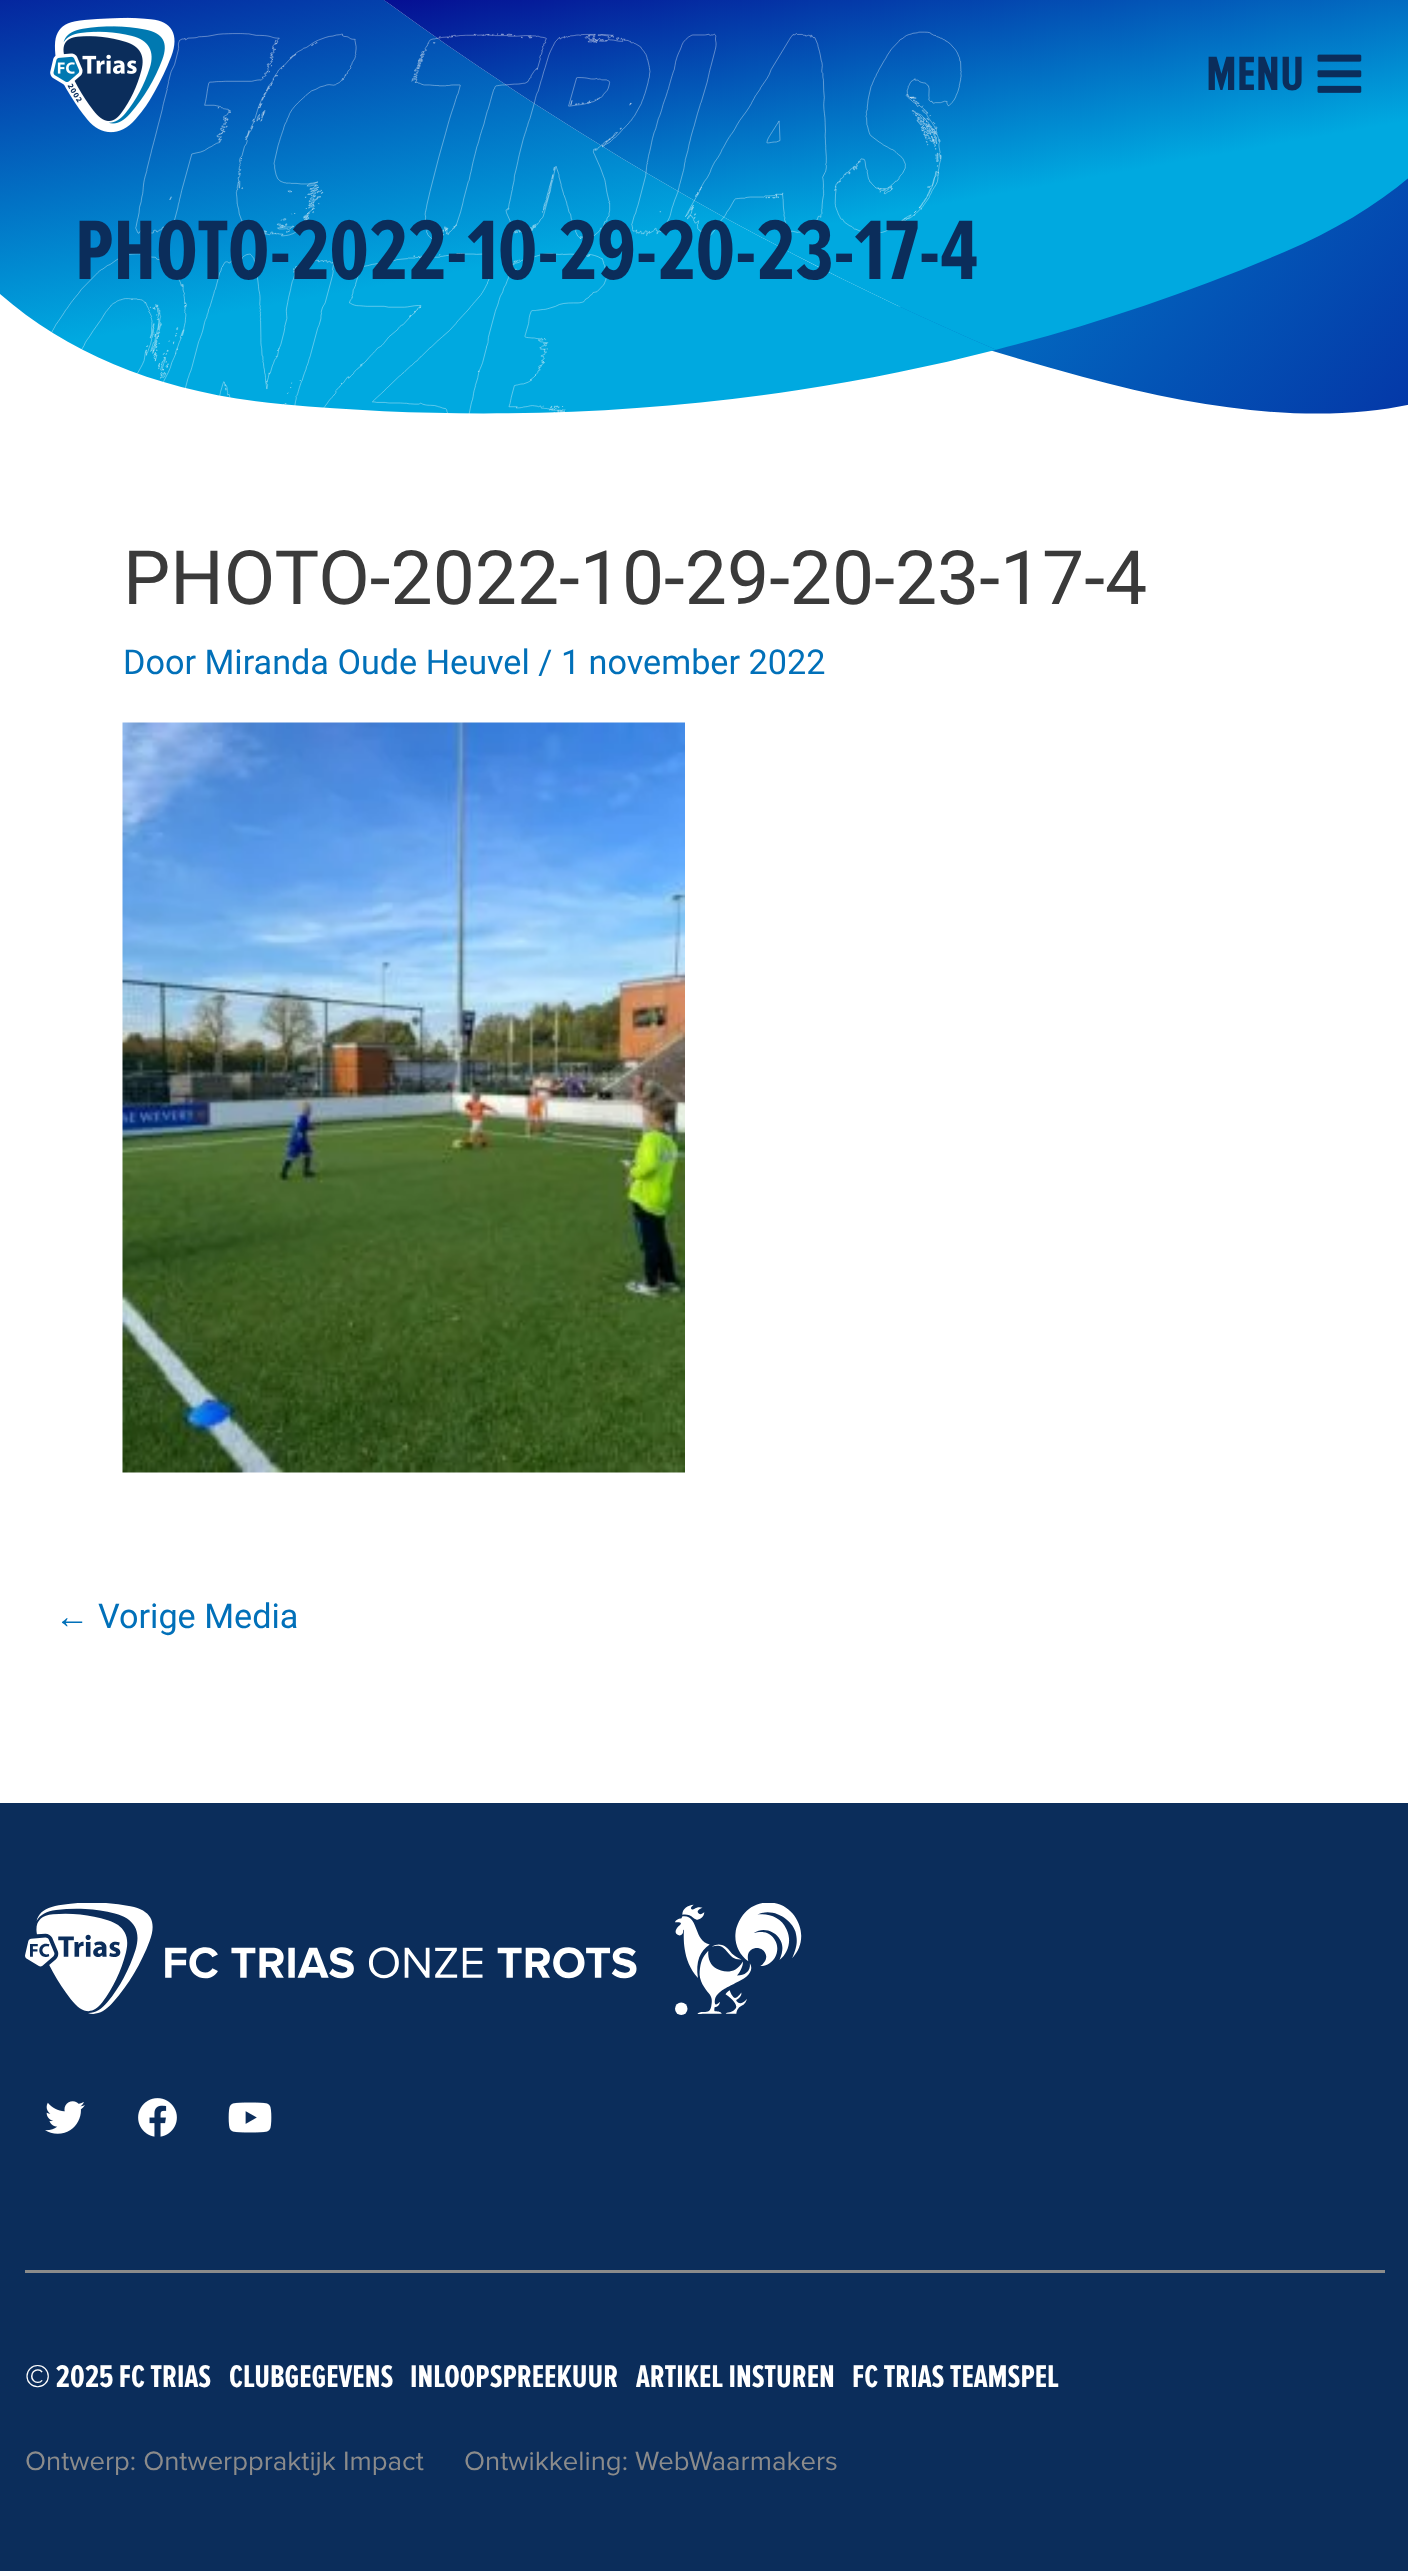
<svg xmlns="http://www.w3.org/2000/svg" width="1408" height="2571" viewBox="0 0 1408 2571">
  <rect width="100%" height="100%" fill="rgb(255,255,255)"/>
  <image x="0" y="0" width="1408" height="414" href="pic1.png"/>
  <image x="50" y="17" width="125" height="116" href="pic2.png"/>
  <text x="1206" y="90" font-family="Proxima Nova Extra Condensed" font-size="50" font-weight="bold" fill="rgb(11,45,91)">MENU</text>
  <image x="1317" y="54" width="45" height="39" href="pic3.png"/>
  <text x="75" y="279" font-family="Proxima Nova Extra Condensed" font-size="87.5" font-weight="bold" fill="rgb(11,45,91)">PHOTO-2022-10-29-20-23-17-4</text>
  <text x="123" y="604" font-family="Roboto" font-size="75" fill="rgb(58,58,58)">PHOTO-2022-10-29-20-23-17-4</text>
  <text x="123" y="674" font-family="Roboto" font-size="34.2" fill="rgb(1,112,185)">Door Miranda Oude Heuvel / 1 november 2022</text>
  <image x="122" y="722" width="563" height="751" href="pic4.png"/>
  <text x="55" y="1628" font-family="Liberation Sans" font-size="34.2" fill="rgb(1,112,185)">←</text>
  <text x="98" y="1628" font-family="Roboto" font-size="34.2" fill="rgb(1,112,185)">Vorige Media</text>
  <rect x="0" y="1803" width="1408" height="768" fill="rgb(11,45,91)"/>
  <image x="25" y="1903" width="777" height="112" href="pic5.png"/>
  <image x="45" y="2101" width="40" height="33" href="pic6.png"/>
  <image x="138" y="2098" width="39" height="39" href="pic7.png"/>
  <image x="228" y="2102" width="44" height="31" href="pic8.png"/>
  <rect x="25" y="2270" width="1360" height="3" fill="rgb(139,139,139)"/>
  <g font-family="Proxima Nova Extra Condensed" font-size="32.5" font-weight="bold" fill="rgb(255,255,255)">
    <text x="25" y="2387">© 2025 FC TRIAS</text>
    <text x="229" y="2387">CLUBGEGEVENS</text>
    <text x="410" y="2387">INLOOPSPREEKUUR</text>
    <text x="636" y="2387">ARTIKEL INSTUREN</text>
    <text x="852" y="2387">FC TRIAS TEAMSPEL</text>
  </g>
  <g font-family="Proxima Nova" font-size="27.5" fill="rgb(139,139,139)">
    <text x="25" y="2470">Ontwerp: Ontwerppraktijk Impact</text>
    <text x="464" y="2470">Ontwikkeling: WebWaarmakers</text>
  </g>
</svg>
